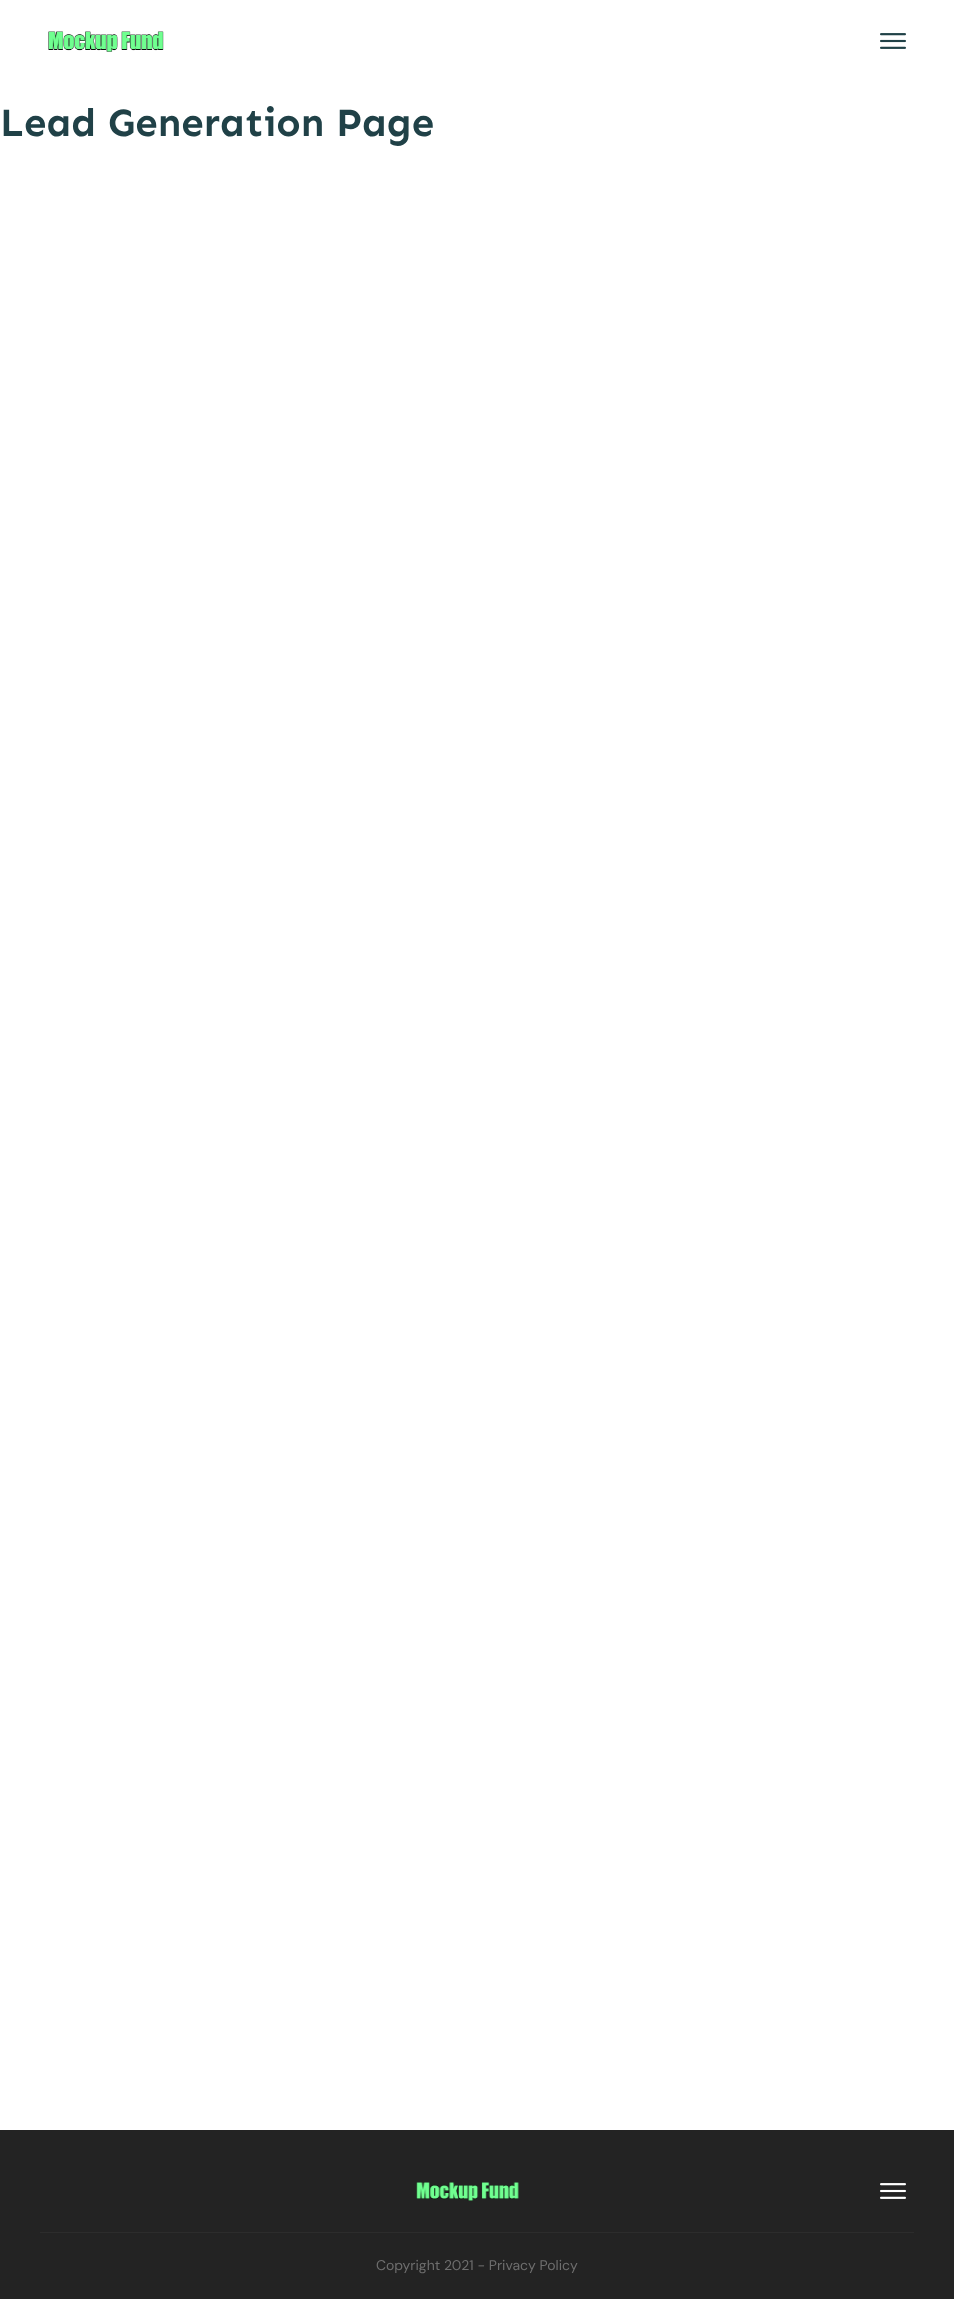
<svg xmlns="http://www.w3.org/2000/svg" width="954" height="2299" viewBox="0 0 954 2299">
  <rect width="100%" height="100%" fill="rgb(255,255,255)"/>
  <image x="48" y="31" width="116" height="21" href="pic1.png"/>
  <image x="880" y="33" width="26" height="16" href="pic2.png"/>
  <text x="0" y="136" font-family="Sen" font-size="40" font-weight="bold" fill="rgb(32,65,71)">Lead Generation Page</text>
  <rect x="0" y="2130" width="954" height="169" fill="rgb(35,35,35)"/>
  <image x="416" y="2182" width="103" height="19" href="pic3.png"/>
  <image x="880" y="2183" width="26" height="16" href="pic4.png"/>
  <rect x="40" y="2232" width="874" height="1" fill="rgb(44,44,44)"/>
  <text x="376" y="2270" font-family="DM Sans" font-size="14" fill="rgb(110,110,110)">Copyright 2021 - Privacy Policy</text>
</svg>
